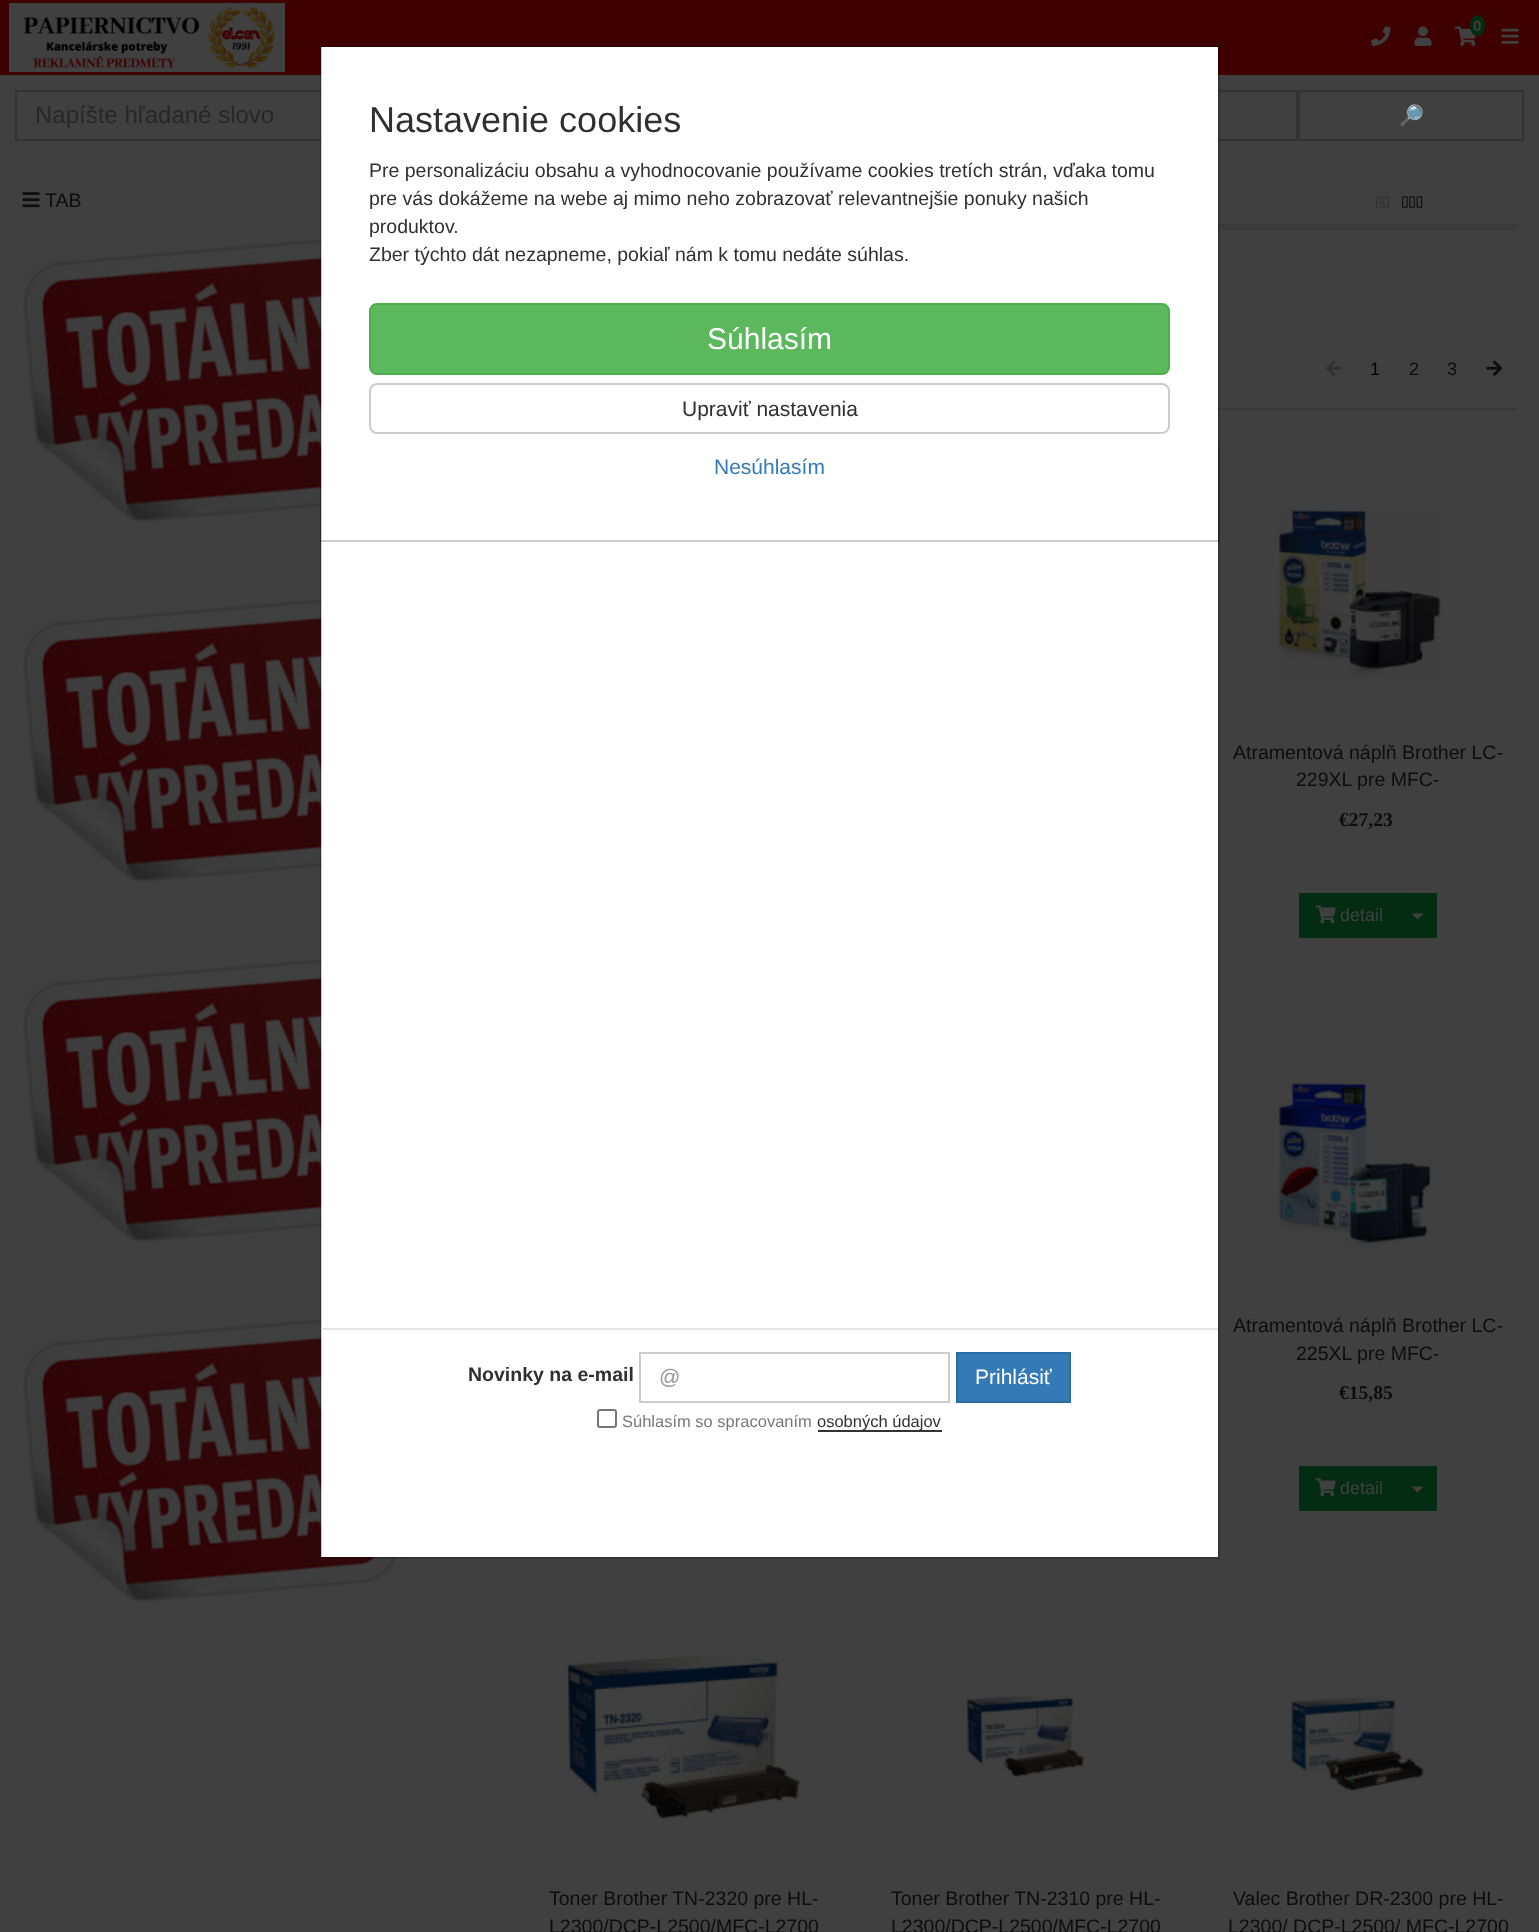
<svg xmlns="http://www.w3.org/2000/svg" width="1539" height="1932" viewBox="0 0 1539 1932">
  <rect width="100%" height="100%" fill="rgb(64,64,64)"/>
  <rect x="0" y="0" width="1539" height="75" fill="rgb(63,0,0)"/>
  <image x="9" y="3" width="276" height="69" href="pic1.png"/>
  <image x="1371" y="26" width="20" height="20" href="pic2.png"/>
  <image x="1414" y="26" width="18" height="20" href="pic3.png"/>
  <image x="1455" y="26" width="21" height="20" href="pic4.png"/>
  <ellipse cx="1477.5" cy="25.5" rx="7.5" ry="10.5" fill="rgb(3,44,19)"/>
  <text x="1473" y="31" font-family="Liberation Sans" font-size="15" font-weight="bold" fill="rgb(64,64,64)">0</text>
  <image x="1501" y="28" width="18" height="16" href="pic5.png"/>
  <rect x="16" y="91" width="1281" height="49" fill="none" stroke="rgb(51,51,51)" stroke-width="2"/>
  <text x="35" y="123" font-family="Liberation Sans" font-size="24" fill="rgb(39,39,39)">Napíšte hľadané slovo</text>
  <rect x="1299" y="91" width="224" height="49" fill="none" stroke="rgb(51,51,51)" stroke-width="2"/>
  <text x="1398" y="123" font-family="Noto Color Emoji" font-size="21" fill="rgb(13,13,13)">🔎</text>
  <image x="22" y="230" width="299" height="298" href="pic7.png"/>
  <image x="22" y="590" width="299" height="298" href="pic7.png"/>
  <image x="22" y="950" width="299" height="298" href="pic7.png"/>
  <image x="22" y="1310" width="379" height="298" href="pic8.png"/>
  <rect x="321" y="540" width="897" height="1017" fill="rgb(255,255,255)"/>
  <rect x="321" y="447" width="898" height="1111" fill="none" stroke="rgba(0,0,0,0.2)" stroke-width="2"/>
  <rect x="321" y="47" width="897" height="493" fill="rgb(255,255,255)"/>
  <rect x="1218" y="224" width="299" height="6" fill="rgb(59,59,59)"/>
  <rect x="1218" y="408" width="299" height="2" fill="rgb(56,56,56)"/>
  <rect x="321" y="46" width="898" height="495" fill="none" stroke="rgba(0,0,0,0.2)" stroke-width="2"/>
  <text x="369" y="132" font-family="Liberation Sans" font-size="36" fill="rgb(48,48,48)">Nastavenie cookies</text>
  <g font-family="Liberation Sans" font-size="19.5" fill="rgb(48,48,48)">
    <text>
      <tspan x="369" y="177">Pre personalizáciu obsahu a vyhodnocovanie používame cookies tretích strán, vďaka tomu</tspan>
      <tspan x="369" y="205">pre vás dokážeme na webe aj mimo neho zobrazovať relevantnejšie ponuky našich</tspan>
      <tspan x="369" y="233">produktov.</tspan>
      <tspan x="369" y="261">Zber týchto dát nezapneme, pokiaľ nám k tomu nedáte súhlas.</tspan>
    </text>
  </g>
  <rect x="370" y="304" width="799" height="70" rx="7" fill="rgb(92,184,92)" stroke="rgb(76,174,76)" stroke-width="2"/>
  <text x="707" y="349" font-family="Liberation Sans" font-size="30" fill="rgb(255,255,255)">Súhlasím</text>
  <rect x="370" y="384" width="799" height="49" rx="7" fill="none" stroke="rgb(204,204,204)" stroke-width="2"/>
  <text x="682" y="416" font-family="Liberation Sans" font-size="21" fill="rgb(48,48,48)">Upraviť nastavenia</text>
  <text x="714" y="474" font-family="Liberation Sans" font-size="21" fill="rgb(51,122,183)">Nesúhlasím</text>
  <image x="22" y="192" width="18" height="16" href="pic6.png"/>
  <text x="45" y="207" font-family="Liberation Sans" font-size="19.5" fill="rgb(13,13,13)">TAB</text>
  <text x="1373" y="207" font-family="DejaVu Sans Mono" font-size="19.5" letter-spacing="-4.5" fill="rgb(48,48,48)">▯▯</text>
  <text x="1399" y="207" font-family="DejaVu Sans Mono" font-size="19.5" letter-spacing="-4.5" fill="rgb(13,13,13)">▯▯▯</text>
  <image x="1326" y="360" width="16" height="16" href="pic9.png"/>
  <text x="1370" y="375" font-family="Liberation Sans" font-size="18" fill="rgb(0,0,0)">1</text>
  <g font-family="Liberation Sans" font-size="18" fill="rgb(13,13,13)">
    <text x="1409" y="375">2</text>
    <text x="1447" y="375">3</text>
  </g>
  <image x="1486" y="360" width="17" height="16" href="pic10.png"/>
  <image x="1278" y="507" width="163" height="172" href="pic11.png"/>
  <g font-family="Liberation Sans" font-size="19.5" fill="rgb(13,13,13)">
    <text x="1233" y="759">Atramentová náplň Brother LC-</text>
    <text x="1296" y="786">229XL pre MFC-</text>
  </g>
  <text x="1339" y="826" font-family="Liberation Serif" font-size="19.5" font-weight="bold" fill="rgb(13,13,13)">€27,23</text>
  <rect x="1299" y="893" width="138" height="45" fill="rgb(3,44,19)"/>
  <image x="1315" y="905" width="21" height="19" href="pic12.png"/>
  <text x="1340" y="921" font-family="Liberation Sans" font-size="18" fill="rgb(64,64,64)">detail</text>
  <path d="M1411.5 913.5H1423.5L1417.5 919.5Z" fill="rgb(64,64,64)"/>
  <image x="1279" y="1081" width="153" height="169" href="pic13.png"/>
  <g font-family="Liberation Sans" font-size="19.5" fill="rgb(13,13,13)">
    <text x="1233" y="1332">Atramentová náplň Brother LC-</text>
    <text x="1296" y="1360">225XL pre MFC-</text>
  </g>
  <text x="1339" y="1399" font-family="Liberation Serif" font-size="19.5" font-weight="bold" fill="rgb(13,13,13)">€15,85</text>
  <rect x="1299" y="1466" width="138" height="45" fill="rgb(3,44,19)"/>
  <image x="1315" y="1478" width="21" height="19" href="pic12.png"/>
  <text x="1340" y="1494" font-family="Liberation Sans" font-size="18" fill="rgb(64,64,64)">detail</text>
  <path d="M1411.5 1486.5H1423.5L1417.5 1492.5Z" fill="rgb(64,64,64)"/>
  <image x="565" y="1654" width="236" height="166" href="pic14.png"/>
  <g font-family="Liberation Sans" font-size="19.5" fill="rgb(13,13,13)">
    <text>
      <tspan x="549" y="1905">Toner Brother TN-2320 pre HL-</tspan>
      <tspan x="549" y="1933">L2300/DCP-L2500/MFC-L2700</tspan>
    </text>
  </g>
  <image x="965" y="1694" width="120" height="83" href="pic15.png"/>
  <g font-family="Liberation Sans" font-size="19.5" fill="rgb(13,13,13)">
    <text>
      <tspan x="891" y="1905">Toner Brother TN-2310 pre HL-</tspan>
      <tspan x="891" y="1933">L2300/DCP-L2500/MFC-L2700</tspan>
    </text>
  </g>
  <image x="1289" y="1696" width="136" height="96" href="pic16.png"/>
  <g font-family="Liberation Sans" font-size="19.5" fill="rgb(13,13,13)">
    <text x="1233" y="1905">Valec Brother DR-2300 pre HL-</text>
    <text x="1228" y="1933">L2300/ DCP-L2500/ MFC-L2700</text>
  </g>
  <rect x="321" y="1328" width="897" height="2" fill="rgb(229,229,229)"/>
  <text x="468" y="1381" font-family="Liberation Sans" font-size="19.5" font-weight="bold" fill="rgb(48,48,48)">Novinky na e-mail</text>
  <rect x="640" y="1353" width="309" height="49" fill="none" stroke="rgb(204,204,204)" stroke-width="2"/>
  <text x="659" y="1384" font-family="Liberation Sans" font-size="21" fill="rgb(153,153,153)">@</text>
  <rect x="957" y="1353" width="113" height="49" fill="rgb(51,122,183)" stroke="rgb(46,109,164)" stroke-width="2"/>
  <text x="975" y="1384" font-family="Liberation Sans" font-size="21" fill="rgb(255,255,255)">Prihlásiť</text>
  <rect x="598" y="1410" width="18" height="17" rx="2" fill="none" stroke="rgb(118,118,118)" stroke-width="2"/>
  <text x="622" y="1427" font-family="Liberation Sans" font-size="16.5" fill="rgb(119,119,119)">Súhlasím so spracovaním</text>
  <rect x="818" y="1430" width="124" height="2" fill="rgb(51,51,51)"/>
  <text x="817" y="1427" font-family="Liberation Sans" font-size="16.5" fill="rgb(48,48,48)">osobných údajov</text>
</svg>
